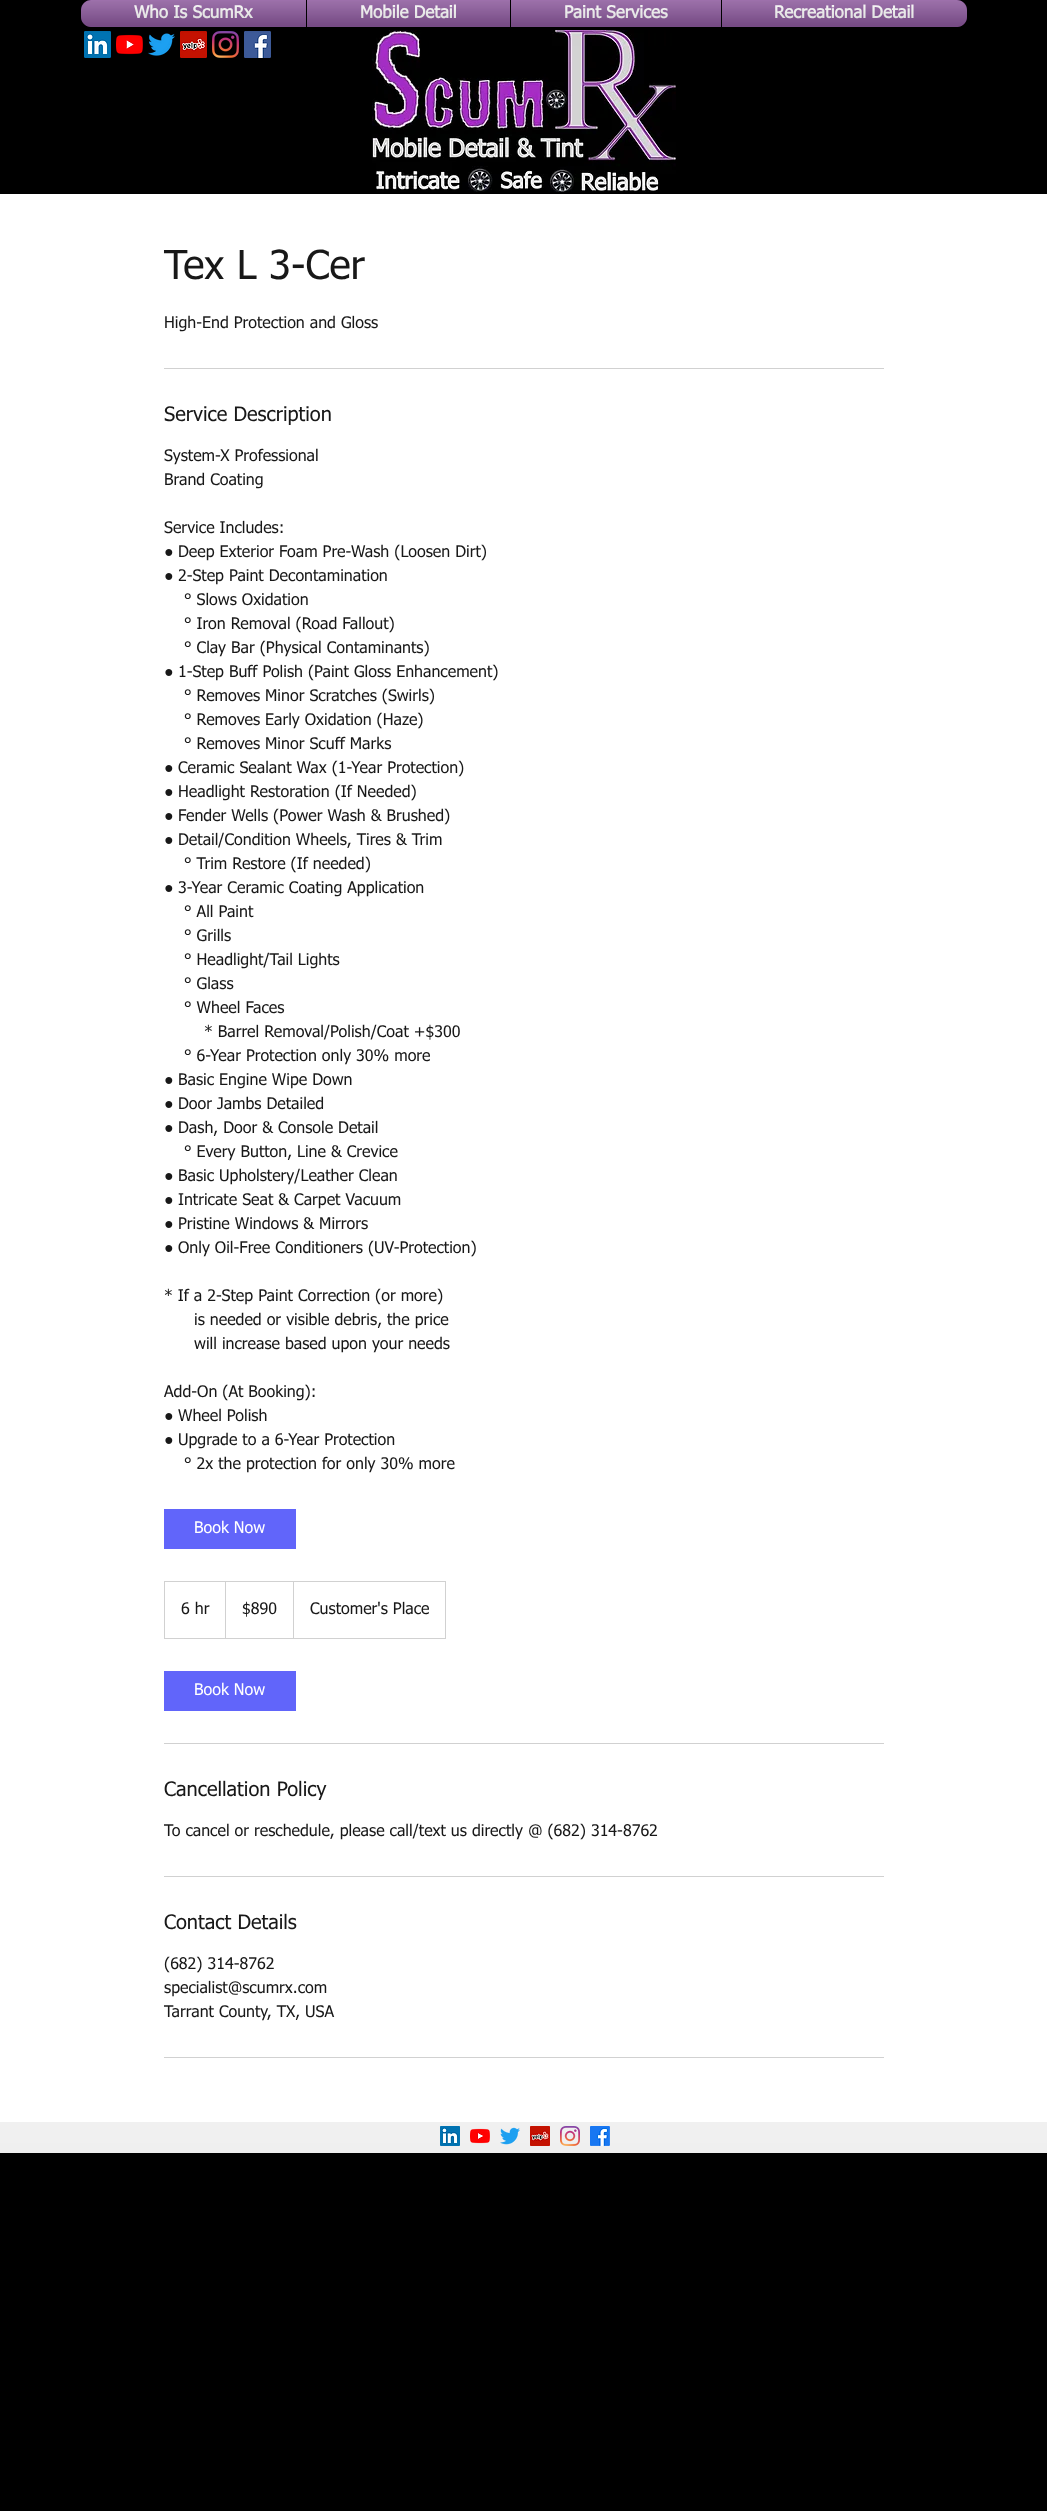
<svg xmlns="http://www.w3.org/2000/svg" width="1047" height="2511" viewBox="0 0 1047 2511">
  <style>
    .t1 { font: bold 17px tahoma; fill: #fff; }
    .t2 { font: 40px tahoma; fill: #181818; }
    .t3 { font: 16px tahoma; fill: #181818; }
    .t4 { font: 20px tahoma; fill: #181818; }
    .t5 { font: 16px 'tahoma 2'; fill: #181818; }
    .t6 { font: 16px tahoma; fill: #fff; }
  </style>
  <rect width="100%" height="100%" fill="#000"/>
  <image x="84" y="31" width="27" height="27" href="images/11.png"/>
  <image x="116" y="34" width="27" height="21" href="images/12.png"/>
  <image x="148" y="33" width="27" height="23" href="images/13.png"/>
  <image x="180" y="31" width="27" height="27" href="images/14.png"/>
  <image x="212" y="31" width="27" height="27" href="images/15.png"/>
  <image x="244" y="31" width="27" height="27" href="images/16.png"/>
  <image x="372" y="30" width="304" height="162" href="images/17.png"/>
  <rect x="81" y="1" width="886" height="27" rx="10" fill="#00000099" filter="blur(2px)"/>
  <image x="81" y="0" width="886" height="27" href="images/1.png"/>
  <image x="81" y="5" width="886" height="22" href="images/2.png"/>
  <path d="M91 0H306V27H91C85.5 27 81 22.5 81 17V10C81 4.5 85.5 0 91 0Z" fill="#875099"/>
  <text x="134" y="18" class="t1">Who Is ScumRx</text>
  <image x="81" y="0" width="225" height="27" href="images/3.png"/>
  <image x="81" y="1" width="225" height="26" href="images/4.png"/>
  <rect x="307" y="0" width="203" height="27" fill="#875099"/>
  <rect x="306" y="0" width="1" height="27" fill="#000"/>
  <text x="360" y="18" class="t1">Mobile Detail</text>
  <image x="307" y="0" width="203" height="27" href="images/5.png"/>
  <image x="307" y="1" width="203" height="26" href="images/6.png"/>
  <rect x="511" y="0" width="210" height="27" fill="#875099"/>
  <rect x="510" y="0" width="1" height="27" fill="#000"/>
  <text x="564" y="18" class="t1">Paint Services</text>
  <image x="511" y="0" width="210" height="27" href="images/7.png"/>
  <image x="511" y="1" width="210" height="26" href="images/8.png"/>
  <path d="M721 0H957C962.5 0 967 4.5 967 10V17C967 22.5 962.5 27 957 27H721Z" fill="#875099"/>
  <rect x="721" y="0" width="1" height="27" fill="#000"/>
  <text x="774" y="18" class="t1">Recreational Detail</text>
  <image x="722" y="0" width="245" height="27" href="images/9.png"/>
  <image x="722" y="1" width="245" height="26" href="images/10.png"/>
  <rect x="0" y="194" width="1047" height="1928" fill="#fff"/>
  <text x="164" y="279" class="t2">Tex L 3-Cer</text>
  <text x="164" y="328" class="t3">High-End Protection and Gloss</text>
  <rect x="164" y="368" width="720" height="1" fill="#d1d1d1"/>
  <text x="164" y="421" class="t4">Service Description</text>
  <text x="164" y="461" class="t3">System-X Professional</text>
  <text x="164" y="485" class="t3">Brand Coating</text>
  <text x="164" y="533" class="t3">Service Includes:</text>
  <text x="164" y="557" class="t5">●</text>
  <text x="178" y="557" class="t3">Deep Exterior Foam Pre-Wash (Loosen Dirt)</text>
  <text x="164" y="581" class="t5">●</text>
  <text x="178" y="581" class="t3">2-Step Paint Decontamination</text>
  <text x="184" y="605" class="t3">° Slows Oxidation</text>
  <text x="184" y="629" class="t3">° Iron Removal (Road Fallout)</text>
  <text x="184" y="653" class="t3">° Clay Bar (Physical Contaminants)</text>
  <text x="164" y="677" class="t5">●</text>
  <text x="178" y="677" class="t3">1-Step Buff Polish (Paint Gloss Enhancement)</text>
  <text x="184" y="701" class="t3">° Removes Minor Scratches (Swirls)</text>
  <text x="184" y="725" class="t3">° Removes Early Oxidation (Haze)</text>
  <text x="184" y="749" class="t3">° Removes Minor Scuff Marks</text>
  <text x="164" y="773" class="t5">●</text>
  <text x="178" y="773" class="t3">Ceramic Sealant Wax (1-Year Protection)</text>
  <text x="164" y="797" class="t5">●</text>
  <text x="178" y="797" class="t3">Headlight Restoration (If Needed)</text>
  <text x="164" y="821" class="t5">●</text>
  <text x="178" y="821" class="t3">Fender Wells (Power Wash &amp; Brushed)</text>
  <text x="164" y="845" class="t5">●</text>
  <text x="178" y="845" class="t3">Detail/Condition Wheels, Tires &amp; Trim</text>
  <text x="184" y="869" class="t3">° Trim Restore (If needed)</text>
  <text x="164" y="893" class="t5">●</text>
  <text x="178" y="893" class="t3">3-Year Ceramic Coating Application</text>
  <text x="184" y="917" class="t3">° All Paint</text>
  <text x="184" y="941" class="t3">° Grills</text>
  <text x="184" y="965" class="t3">° Headlight/Tail Lights</text>
  <text x="184" y="989" class="t3">° Glass</text>
  <text x="184" y="1013" class="t3">° Wheel Faces</text>
  <text x="204" y="1037" class="t3">* Barrel Removal/Polish/Coat +$300</text>
  <text x="184" y="1061" class="t3">° 6-Year Protection only 30% more</text>
  <text x="164" y="1085" class="t5">●</text>
  <text x="178" y="1085" class="t3">Basic Engine Wipe Down</text>
  <text x="164" y="1109" class="t5">●</text>
  <text x="178" y="1109" class="t3">Door Jambs Detailed</text>
  <text x="164" y="1133" class="t5">●</text>
  <text x="178" y="1133" class="t3">Dash, Door &amp; Console Detail</text>
  <text x="184" y="1157" class="t3">° Every Button, Line &amp; Crevice</text>
  <text x="164" y="1181" class="t5">●</text>
  <text x="178" y="1181" class="t3">Basic Upholstery/Leather Clean</text>
  <text x="164" y="1205" class="t5">●</text>
  <text x="178" y="1205" class="t3">Intricate Seat &amp; Carpet Vacuum</text>
  <text x="164" y="1229" class="t5">●</text>
  <text x="178" y="1229" class="t3">Pristine Windows &amp; Mirrors</text>
  <text x="164" y="1253" class="t5">●</text>
  <text x="178" y="1253" class="t3">Only Oil-Free Conditioners (UV-Protection)</text>
  <text x="164" y="1301" class="t3">* If a 2-Step Paint Correction (or more)</text>
  <text x="194" y="1325" class="t3">is needed or visible debris, the price</text>
  <text x="194" y="1349" class="t3">will increase based upon your needs</text>
  <text x="164" y="1397" class="t3">Add-On (At Booking):</text>
  <text x="164" y="1421" class="t5">●</text>
  <text x="178" y="1421" class="t3">Wheel Polish</text>
  <text x="164" y="1445" class="t5">●</text>
  <text x="178" y="1445" class="t3">Upgrade to a 6-Year Protection</text>
  <text x="184" y="1469" class="t3">° 2x the protection for only 30% more</text>
  <rect x="164" y="1509" width="132" height="40" fill="#6165fa"/>
  <text x="194" y="1533" class="t6">Book Now</text>
  <rect x="164.5" y="1581.5" width="281" height="57" fill="none" stroke="#d1d1d1"/>
  <text x="181" y="1614" class="t3">6 hr</text>
  <path d="M225 1638V1581L226 1582V1638Z" fill="#d1d1d1"/>
  <text x="242" y="1614" class="t3">$890</text>
  <path d="M293 1638V1581L294 1582V1638Z" fill="#d1d1d1"/>
  <text x="310" y="1614" class="t3">Customer's Place</text>
  <rect x="164" y="1671" width="132" height="40" fill="#6165fa"/>
  <text x="194" y="1695" class="t6">Book Now</text>
  <rect x="164" y="1743" width="720" height="1" fill="#d1d1d1"/>
  <text x="164" y="1796" class="t4">Cancellation Policy</text>
  <text x="164" y="1836" class="t3">To cancel or reschedule, please call/text us directly @ (682) 314-8762</text>
  <rect x="164" y="1876" width="720" height="1" fill="#d1d1d1"/>
  <text x="164" y="1929" class="t4">Contact Details</text>
  <text x="164" y="1969" class="t3">(682) 314-8762</text>
  <text x="164" y="1993" class="t3">specialist@scumrx.com</text>
  <text x="164" y="2017" class="t3">Tarrant County, TX, USA</text>
  <rect x="164" y="2057" width="720" height="1" fill="#d1d1d1"/>
  <rect x="0" y="2122" width="1047" height="31" fill="#ebebeb"/>
  <image x="0" y="2122" width="1047" height="31" href="images/18.png"/>
  <image x="440" y="2126" width="20" height="20" href="images/19.png"/>
  <image x="470" y="2128" width="20" height="16" href="images/20.png"/>
  <image x="500" y="2127" width="20" height="18" href="images/21.png"/>
  <image x="530" y="2126" width="20" height="20" href="images/22.png"/>
  <image x="560" y="2126" width="20" height="20" href="images/23.png"/>
  <image x="590" y="2126" width="20" height="20" href="images/24.png"/>
</svg>
